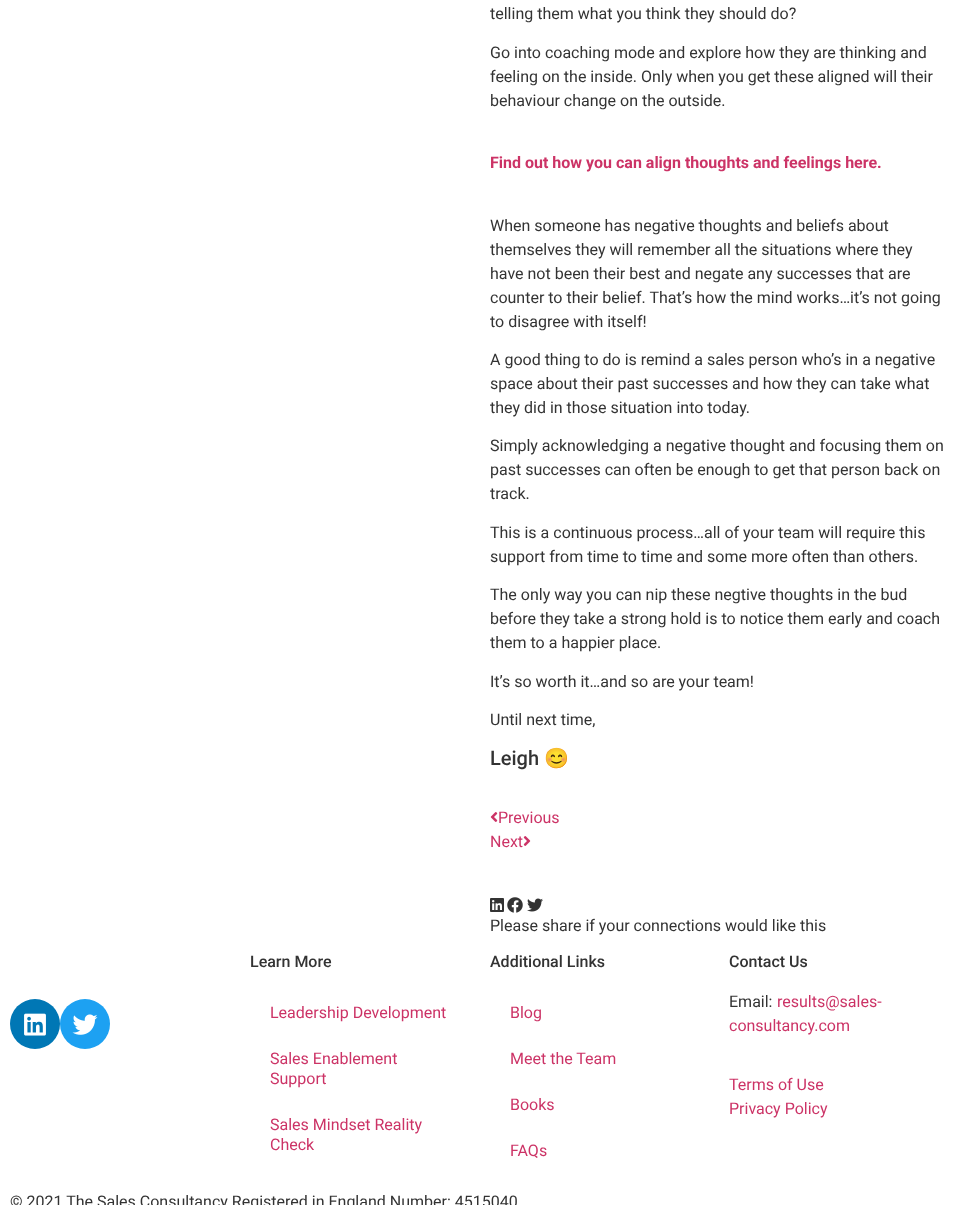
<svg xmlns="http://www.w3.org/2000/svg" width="959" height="1205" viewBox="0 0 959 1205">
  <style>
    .t1 { font: 16px Roboto; fill: #333; }
    .t2 { font: bold 16px Roboto; fill: #c36; }
    .t3 { font: 500 20px Roboto; fill: #333; }
    .t4 { font: 20px Noto Color Emoji; fill: #333; }
    .t5 { font: 16px Roboto; fill: #c36; }
    .t6 { font: 500 16px Roboto; fill: #333; }
  </style>
  <rect width="100%" height="100%" fill="#fff"/>
  <text x="490" y="19" class="t1">telling them what you think they should do?</text>
  <text x="490" y="58" class="t1">Go into coaching mode and explore how they are thinking and</text>
  <text x="490" y="82" class="t1">feeling on the inside. Only when you get these aligned will their</text>
  <text x="490" y="106" class="t1">behaviour change on the outside.</text>
  <text x="490" y="168" class="t2">Find out how you can align thoughts and feelings here.</text>
  <text x="490" y="231" class="t1">When someone has negative thoughts and beliefs about</text>
  <text x="490" y="255" class="t1">themselves they will remember all the situations where they</text>
  <text x="490" y="279" class="t1">have not been their best and negate any successes that are</text>
  <text x="490" y="303" class="t1">counter to their belief. That’s how the mind works…it’s not going</text>
  <text x="490" y="327" class="t1">to disagree with itself!</text>
  <text x="490" y="365" class="t1">A good thing to do is remind a sales person who’s in a negative</text>
  <text x="490" y="389" class="t1">space about their past successes and how they can take what</text>
  <text x="490" y="413" class="t1">they did in those situation into today.</text>
  <text x="490" y="451" class="t1">Simply acknowledging a negative thought and focusing them on</text>
  <text x="490" y="475" class="t1">past successes can often be enough to get that person back on</text>
  <text x="490" y="499" class="t1">track.</text>
  <text x="490" y="538" class="t1">This is a continuous process…all of your team will require this</text>
  <text x="490" y="562" class="t1">support from time to time and some more often than others.</text>
  <text x="490" y="600" class="t1">The only way you can nip these negtive thoughts in the bud</text>
  <text x="490" y="624" class="t1">before they take a strong hold is to notice them early and coach</text>
  <text x="490" y="648" class="t1">them to a happier place.</text>
  <text x="490" y="687" class="t1">It’s so worth it…and so are your team!</text>
  <text x="490" y="725" class="t1">Until next time,</text>
  <text x="490" y="765" class="t3">Leigh</text>
  <text x="544" y="765" class="t4">😊</text>
  <image x="490" y="812" width="8" height="10" href="images/1.png"/>
  <text x="498" y="823" class="t5">Previous</text>
  <text x="490" y="847" class="t5">Next</text>
  <image x="523" y="836" width="8" height="10" href="images/2.png"/>
  <image x="490" y="898" width="14" height="14" href="images/3.png"/>
  <image x="507" y="897" width="16" height="16" href="images/4.png"/>
  <image x="527" y="898" width="16" height="14" href="images/5.png"/>
  <text x="490" y="931" class="t1">Please share if your connections would like this</text>
  <circle cx="35" cy="1024" r="25" fill="#0077b5"/>
  <image x="24" y="1013" width="22" height="23" href="images/6.png"/>
  <circle cx="85" cy="1024" r="25" fill="#1da1f2"/>
  <image x="72" y="1014" width="26" height="21" href="images/7.png"/>
  <text x="250" y="967" class="t6">Learn More</text>
  <text x="270" y="1018" class="t5">Leadership Development</text>
  <text x="270" y="1064" class="t5">Sales Enablement</text>
  <text x="270" y="1084" class="t5">Support</text>
  <text x="270" y="1130" class="t5">Sales Mindset Reality</text>
  <text x="270" y="1150" class="t5">Check</text>
  <text x="490" y="967" class="t6">Additional Links</text>
  <text x="510" y="1018" class="t5">Blog</text>
  <text x="510" y="1064" class="t5">Meet the Team</text>
  <text x="510" y="1110" class="t5">Books</text>
  <text x="510" y="1156" class="t5">FAQs</text>
  <text x="729" y="967" class="t6">Contact Us</text>
  <text x="729" y="1007" class="t1">Email:</text>
  <text x="777" y="1007" class="t5">results@sales-</text>
  <text x="729" y="1031" class="t5">consultancy.com</text>
  <text x="729" y="1090" class="t5">Terms of Use</text>
  <text x="729" y="1114" class="t5">Privacy Policy</text>
  <text x="10" y="1207" class="t1">© 2021 The Sales Consultancy Registered in England Number: 4515040</text>
</svg>
